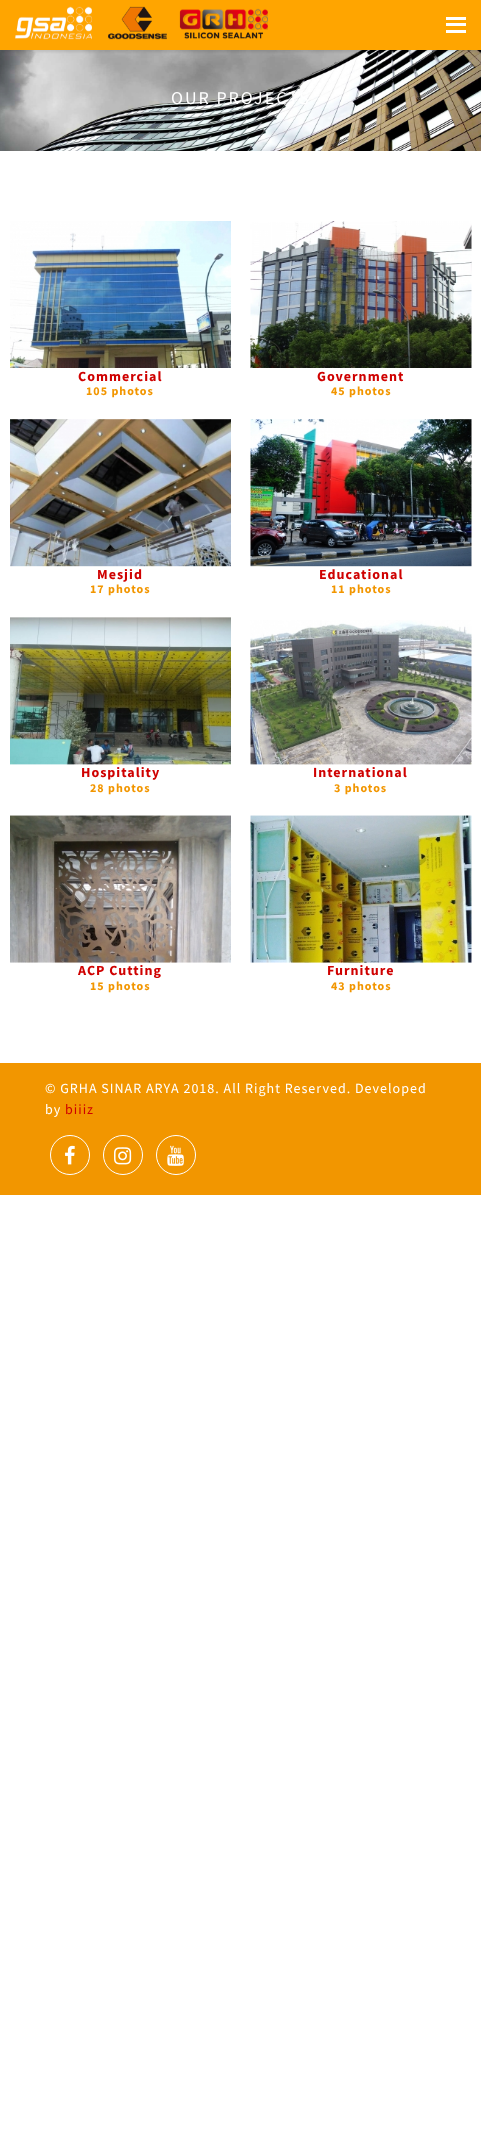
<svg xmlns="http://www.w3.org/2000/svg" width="481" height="2131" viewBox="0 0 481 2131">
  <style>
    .t1 { font: 18px Source Sans Pro; letter-spacing: 2px; fill: #fff; }
    .t2 { font: bold 14px Source Sans Pro; letter-spacing: 1px; fill: #cf0100; }
    .t3 { font: bold 12px Source Sans Pro; letter-spacing: 1px; fill: #f29600; }
    .t4 { font: 14px Source Sans Pro; letter-spacing: 1px; fill: #fff; }
    .t5 { font: 14px Source Sans Pro; letter-spacing: 1px; fill: #cf0100; }
  </style>
  <rect width="100%" height="100%" fill="#fff"/>
  <image x="0" y="50" width="481" height="101" href="images/2.png"/>
  <rect x="0" y="2" width="481" height="50" fill="#0000001a" filter="blur(1px)"/>
  <rect x="0" y="0" width="481" height="50" fill="#ffa500"/>
  <image x="15" y="6" width="253" height="34" href="images/1.png"/>
  <rect x="446" y="17" width="20" height="3" fill="#fff"/>
  <rect x="446" y="23" width="20" height="3" fill="#fff"/>
  <rect x="446" y="30" width="20" height="3" fill="#fff"/>
  <text x="171" y="104" class="t1">OUR PROJECTS</text>
  <image x="10" y="221" width="221" height="147" href="images/3.png"/>
  <text x="78" y="381" class="t2">Commercial</text>
  <text x="86" y="395" class="t3">105 photos</text>
  <image x="250" y="221" width="222" height="147" href="images/4.png"/>
  <text x="317" y="381" class="t2">Government</text>
  <text x="331" y="395" class="t3">45 photos</text>
  <image x="10" y="419" width="221" height="148" href="images/5.png"/>
  <text x="97" y="579" class="t2">Mesjid</text>
  <text x="90" y="593" class="t3">17 photos</text>
  <image x="250" y="419" width="222" height="148" href="images/6.png"/>
  <text x="319" y="579" class="t2">Educational</text>
  <text x="331" y="593" class="t3">11 photos</text>
  <image x="10" y="617" width="221" height="148" href="images/7.png"/>
  <text x="81" y="777" class="t2">Hospitality</text>
  <text x="90" y="792" class="t3">28 photos</text>
  <image x="250" y="620" width="222" height="145" href="images/8.png"/>
  <text x="313" y="777" class="t2">International</text>
  <text x="334" y="792" class="t3">3 photos</text>
  <image x="10" y="815" width="221" height="148" href="images/9.png"/>
  <text x="78" y="975" class="t2">ACP Cutting</text>
  <text x="90" y="990" class="t3">15 photos</text>
  <image x="250" y="815" width="222" height="148" href="images/10.png"/>
  <text x="327" y="975" class="t2">Furniture</text>
  <text x="331" y="990" class="t3">43 photos</text>
  <rect x="0" y="1063" width="481" height="132" fill="#f29600"/>
  <text x="45" y="1093" class="t4">© GRHA SINAR ARYA 2018. All Right Reserved. Developed</text>
  <text x="45" y="1114" class="t4">by</text>
  <text x="65" y="1114" class="t5">biiiz</text>
  <circle cx="70" cy="1155" r="19.5" fill="none" stroke="#fff"/>
  <image x="65" y="1145" width="10" height="20" href="images/11.png"/>
  <circle cx="123" cy="1155" r="19.5" fill="none" stroke="#fff"/>
  <image x="114" y="1147" width="18" height="18" href="images/12.png"/>
  <circle cx="176" cy="1155" r="19.5" fill="none" stroke="#fff"/>
  <image x="167" y="1145" width="17" height="21" href="images/13.png"/>
</svg>
